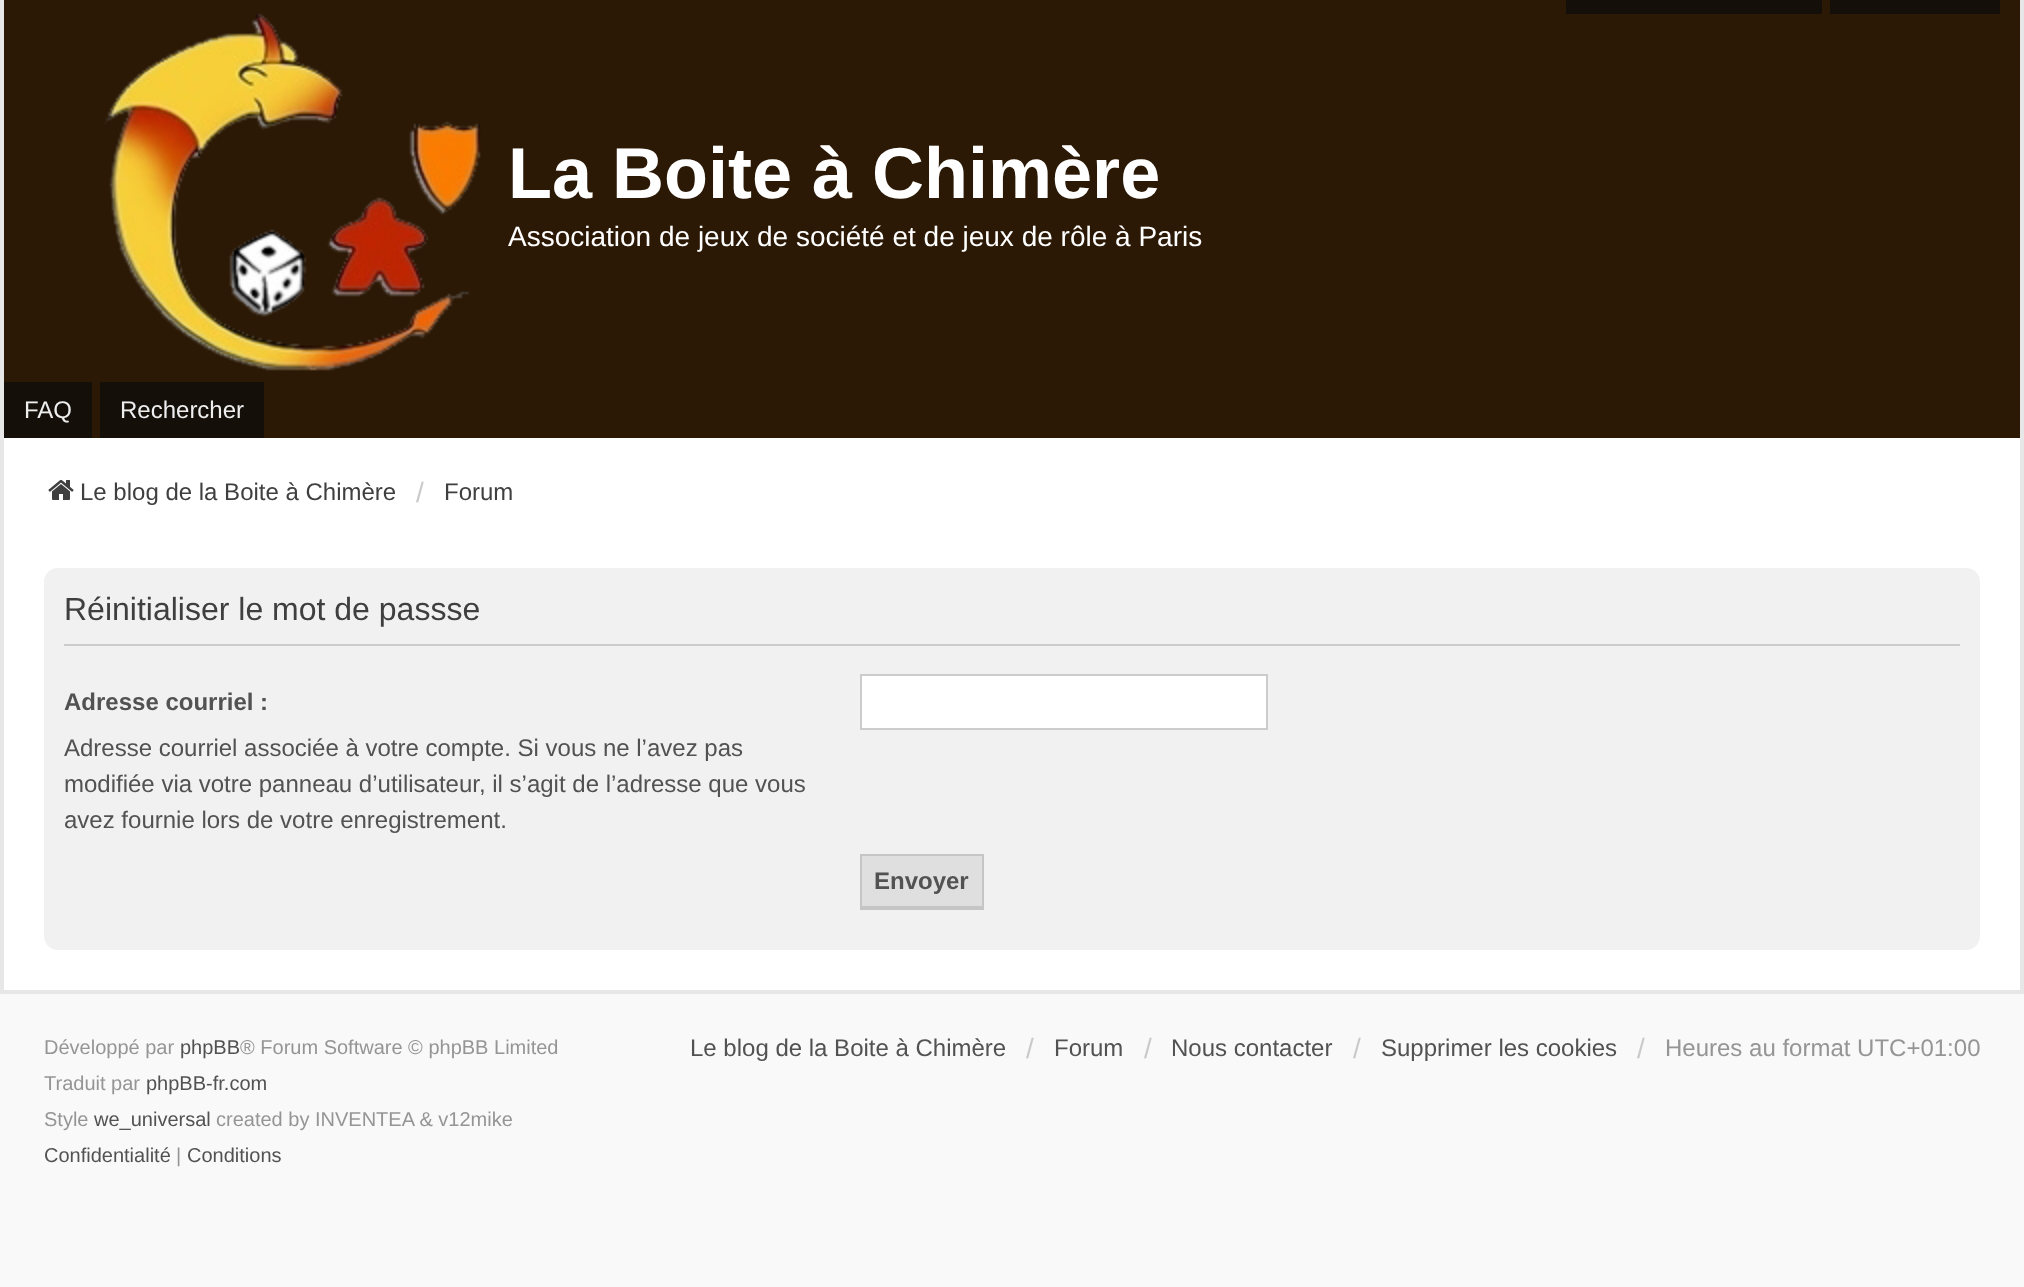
<svg xmlns="http://www.w3.org/2000/svg" width="2024" height="1287" viewBox="0 0 2024 1287">
  <style>
    .t1 { font: bold 72px Liberation Sans; fill: #fff; }
    .t2 { font: 28px Liberation Sans; fill: #fff; }
    .t3 { font: 24px Liberation Sans; fill: #eee; }
    .t4 { font: 24px Liberation Sans; fill: #3f3f3f; }
    .t5 { font: 28px Liberation Sans; fill: #cacaca; }
    .t6 { font: 32px Liberation Sans; fill: #3f3f3f; }
    .t7 { font: bold 24px Liberation Sans; fill: #525252; }
    .t8 { font: 24px Liberation Sans; fill: #525252; }
    .t9 { font: 20px Liberation Sans; fill: #959595; }
    .t10 { font: 20px Liberation Sans; fill: #525252; }
    .t11 { font: 24px Liberation Sans; fill: #959595; }
  </style>
  <rect width="100%" height="100%" fill="#f9f9f9"/>
  <rect x="2020" y="0" width="4" height="994" fill="#e7e7e7"/>
  <rect x="0" y="0" width="4" height="438" fill="#e7e7e7"/>
  <rect x="4" y="0" width="2016" height="438" fill="#2b1906"/>
  <rect x="1566" y="0" width="256" height="14" fill="#140f09"/>
  <rect x="1830" y="0" width="170" height="14" fill="#140f09"/>
  <image x="104" y="13" width="377" height="358" href="images/1.png"/>
  <text x="508" y="198" class="t1">La Boite à Chimère</text>
  <text x="508" y="246" class="t2">Association de jeux de société et de jeux de rôle à Paris</text>
  <rect x="4" y="382" width="88" height="56" fill="#140f09"/>
  <text x="24" y="418" class="t3">FAQ</text>
  <rect x="100" y="382" width="164" height="56" fill="#140f09"/>
  <text x="120" y="418" class="t3">Rechercher</text>
  <rect x="4" y="438" width="2016" height="552" fill="#fff"/>
  <rect x="0" y="990" width="2024" height="4" fill="#e7e7e7"/>
  <rect x="0" y="438" width="4" height="556" fill="#e7e7e7"/>
  <image x="48" y="480" width="26" height="20" href="images/2.png"/>
  <text x="80" y="500" class="t4">Le blog de la Boite à Chimère</text>
  <text x="416" y="502" class="t5">/</text>
  <text x="444" y="500" class="t4">Forum</text>
  <rect x="44" y="568" width="1936" height="382" rx="14" fill="#f1f1f1"/>
  <rect x="64" y="644" width="1896" height="2" fill="#ccc"/>
  <text x="64" y="620" class="t6">Réinitialiser le mot de passse</text>
  <text x="64" y="710" class="t7">Adresse courriel :</text>
  <text x="64" y="756" class="t8">Adresse courriel associée à votre compte. Si vous ne l’avez pas</text>
  <text x="64" y="792" class="t8">modifiée via votre panneau d’utilisateur, il s’agit de l’adresse que vous</text>
  <text x="64" y="828" class="t8">avez fournie lors de votre enregistrement.</text>
  <rect x="861" y="675" width="406" height="54" fill="#fff" stroke="#ccc" stroke-width="2"/>
  <rect x="862" y="856" width="120" height="50" fill="#dfdfdf"/>
  <rect x="860" y="854" width="124" height="2" fill="#c5c5c5"/>
  <rect x="982" y="854" width="2" height="56" fill="#c5c5c5"/>
  <rect x="860" y="906" width="124" height="4" fill="#c5c5c5"/>
  <rect x="860" y="854" width="2" height="56" fill="#c5c5c5"/>
  <text x="874" y="889" class="t7">Envoyer</text>
  <text x="44" y="1054" class="t9">Développé par</text>
  <text x="180" y="1054" class="t10">phpBB</text>
  <text x="240" y="1054" class="t9">® Forum Software © phpBB Limited</text>
  <text x="44" y="1090" class="t9">Traduit par</text>
  <text x="146" y="1090" class="t10">phpBB-fr.com</text>
  <text x="44" y="1126" class="t9">Style</text>
  <text x="94" y="1126" class="t10">we_universal</text>
  <text x="216" y="1126" class="t9">created by INVENTEA &amp; v12mike</text>
  <text x="44" y="1162" class="t10">Confidentialité</text>
  <text x="176" y="1162" class="t9">|</text>
  <text x="187" y="1162" class="t10">Conditions</text>
  <text x="690" y="1056" class="t8">Le blog de la Boite à Chimère</text>
  <text x="1026" y="1058" class="t5">/</text>
  <text x="1054" y="1056" class="t8">Forum</text>
  <text x="1144" y="1058" class="t5">/</text>
  <text x="1171" y="1056" class="t8">Nous contacter</text>
  <text x="1353" y="1058" class="t5">/</text>
  <text x="1381" y="1056" class="t8">Supprimer les cookies</text>
  <text x="1637" y="1058" class="t5">/</text>
  <text x="1665" y="1056" class="t11">Heures au format UTC+01:00</text>
</svg>
